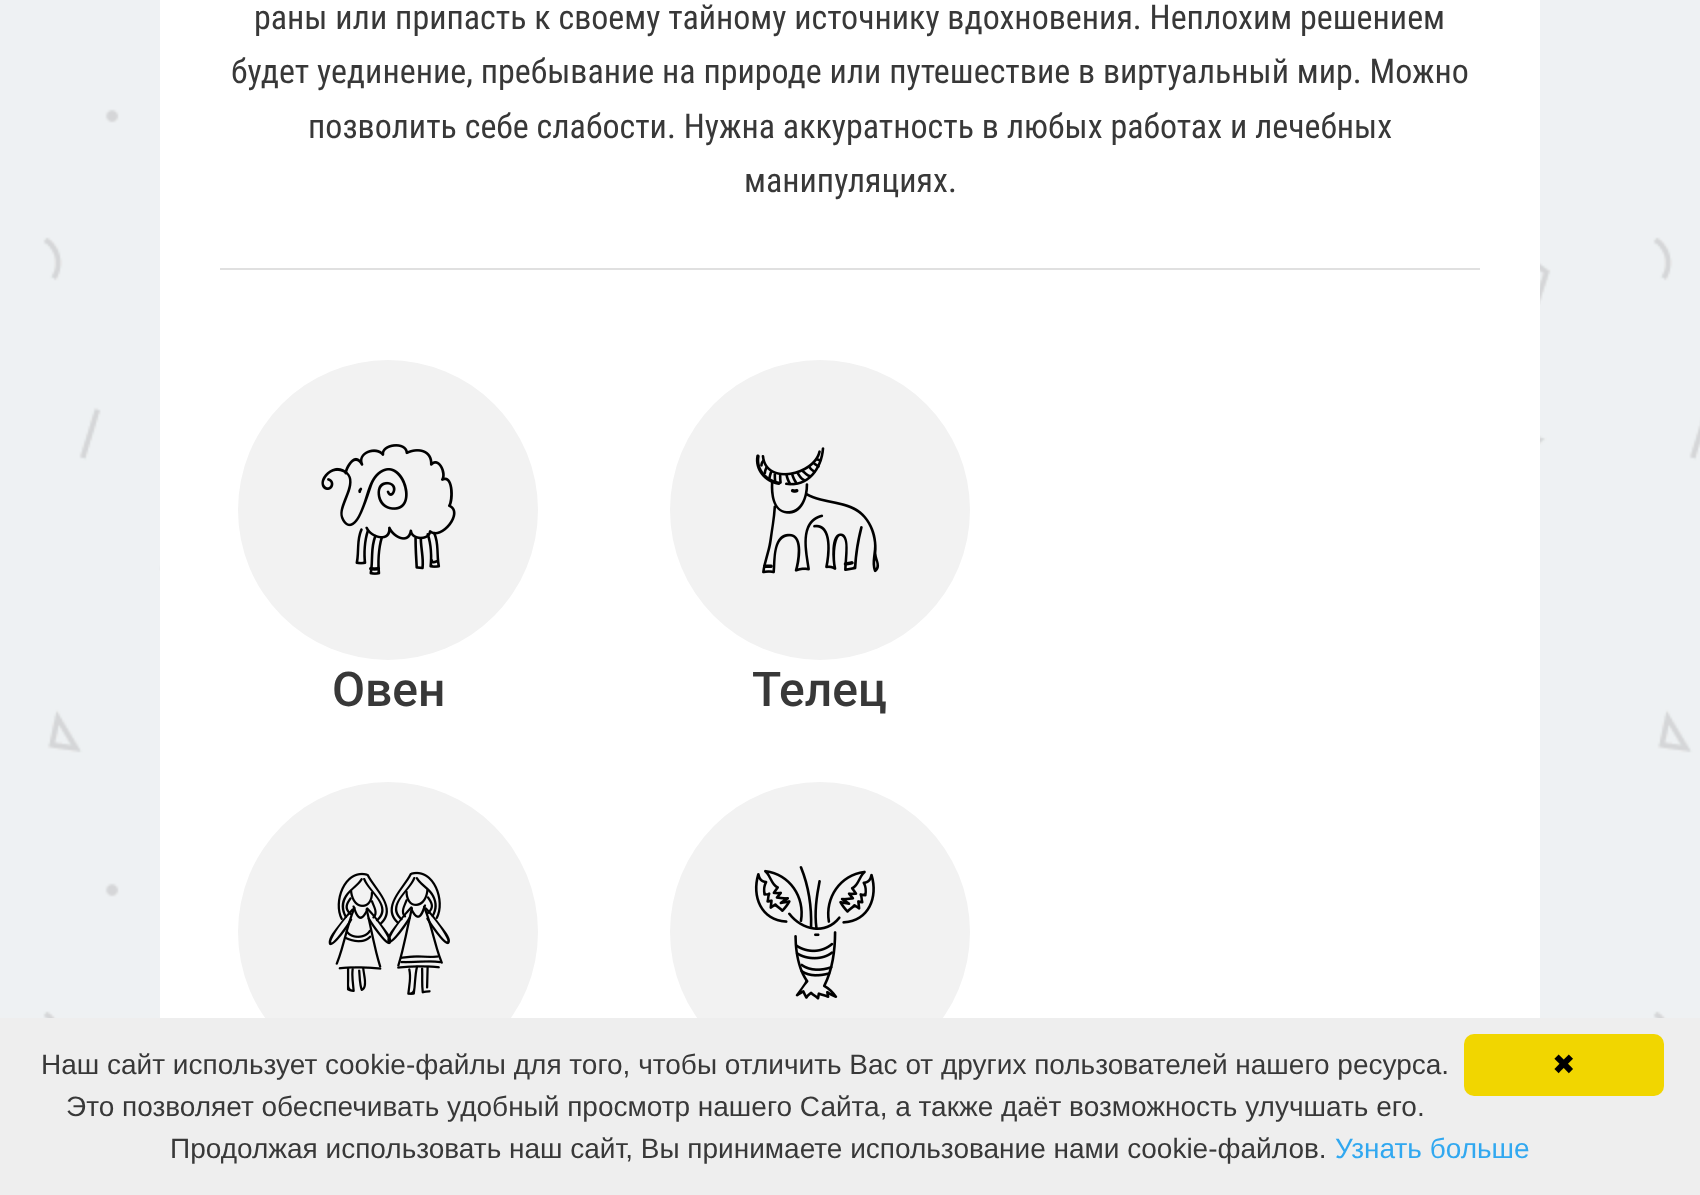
<svg xmlns="http://www.w3.org/2000/svg" width="1700" height="1195" viewBox="0 0 1700 1195">
  <style>
    .t1 { font: 34px Roboto Condensed; fill: #383838; }
    .t2 { font: 500 48px Roboto; fill: #383838; }
    .t3 { font: 28px Liberation Sans; fill: #383838; }
    .t4 { font: 28px Liberation Sans; fill: #31a8f0; }
    .t5 { font: 28px DejaVu Sans; fill: #000; }
  </style>
  <rect width="100%" height="100%" fill="#fff"/>
  <image x="0" y="0" width="1700" height="1018" href="images/1.png"/>
  <rect x="160" y="0" width="1380" height="1018" fill="#fff"/>
  <rect x="220" y="268" width="1260" height="2" fill="#e0e0e0"/>
  <text x="254" y="29" class="t1">раны или припасть к своему тайному источнику вдохновения. Неплохим решением</text>
  <text x="231" y="83" class="t1">будет уединение, пребывание на природе или путешествие в виртуальный мир. Можно</text>
  <text x="308" y="138" class="t1">позволить себе слабости. Нужна аккуратность в любых работах и лечебных</text>
  <text x="744" y="192" class="t1">манипуляциях.</text>
  <circle cx="388" cy="510" r="150" fill="#f2f2f2"/>
  <image x="321" y="444" width="135" height="131" href="images/2.png"/>
  <text x="332" y="706" class="t2">Овен</text>
  <circle cx="820" cy="510" r="150" fill="#f2f2f2"/>
  <image x="755" y="447" width="125" height="127" href="images/3.png"/>
  <text x="752" y="706" class="t2">Телец</text>
  <circle cx="388" cy="932" r="150" fill="#f2f2f2"/>
  <image x="328" y="871" width="122" height="124" href="images/4.png"/>
  <circle cx="820" cy="932" r="150" fill="#f2f2f2"/>
  <image x="754" y="866" width="121" height="134" href="images/5.png"/>
  <rect x="0" y="1018" width="1700" height="177" fill="#eee"/>
  <text x="41" y="1074" class="t3">Наш сайт использует cookie-файлы для того, чтобы отличить Вас от других пользователей нашего ресурса.</text>
  <text x="66" y="1116" class="t3">Это позволяет обеспечивать удобный просмотр нашего Сайта, а также даёт возможность улучшать его.</text>
  <text x="170" y="1158" class="t3">Продолжая использовать наш сайт, Вы принимаете использование нами cookie-файлов.</text>
  <text x="1335" y="1158" class="t4">Узнать больше</text>
  <rect x="1464" y="1034" width="200" height="62" rx="10" fill="#f1d600"/>
  <text x="1552" y="1074" class="t5">✖</text>
</svg>
